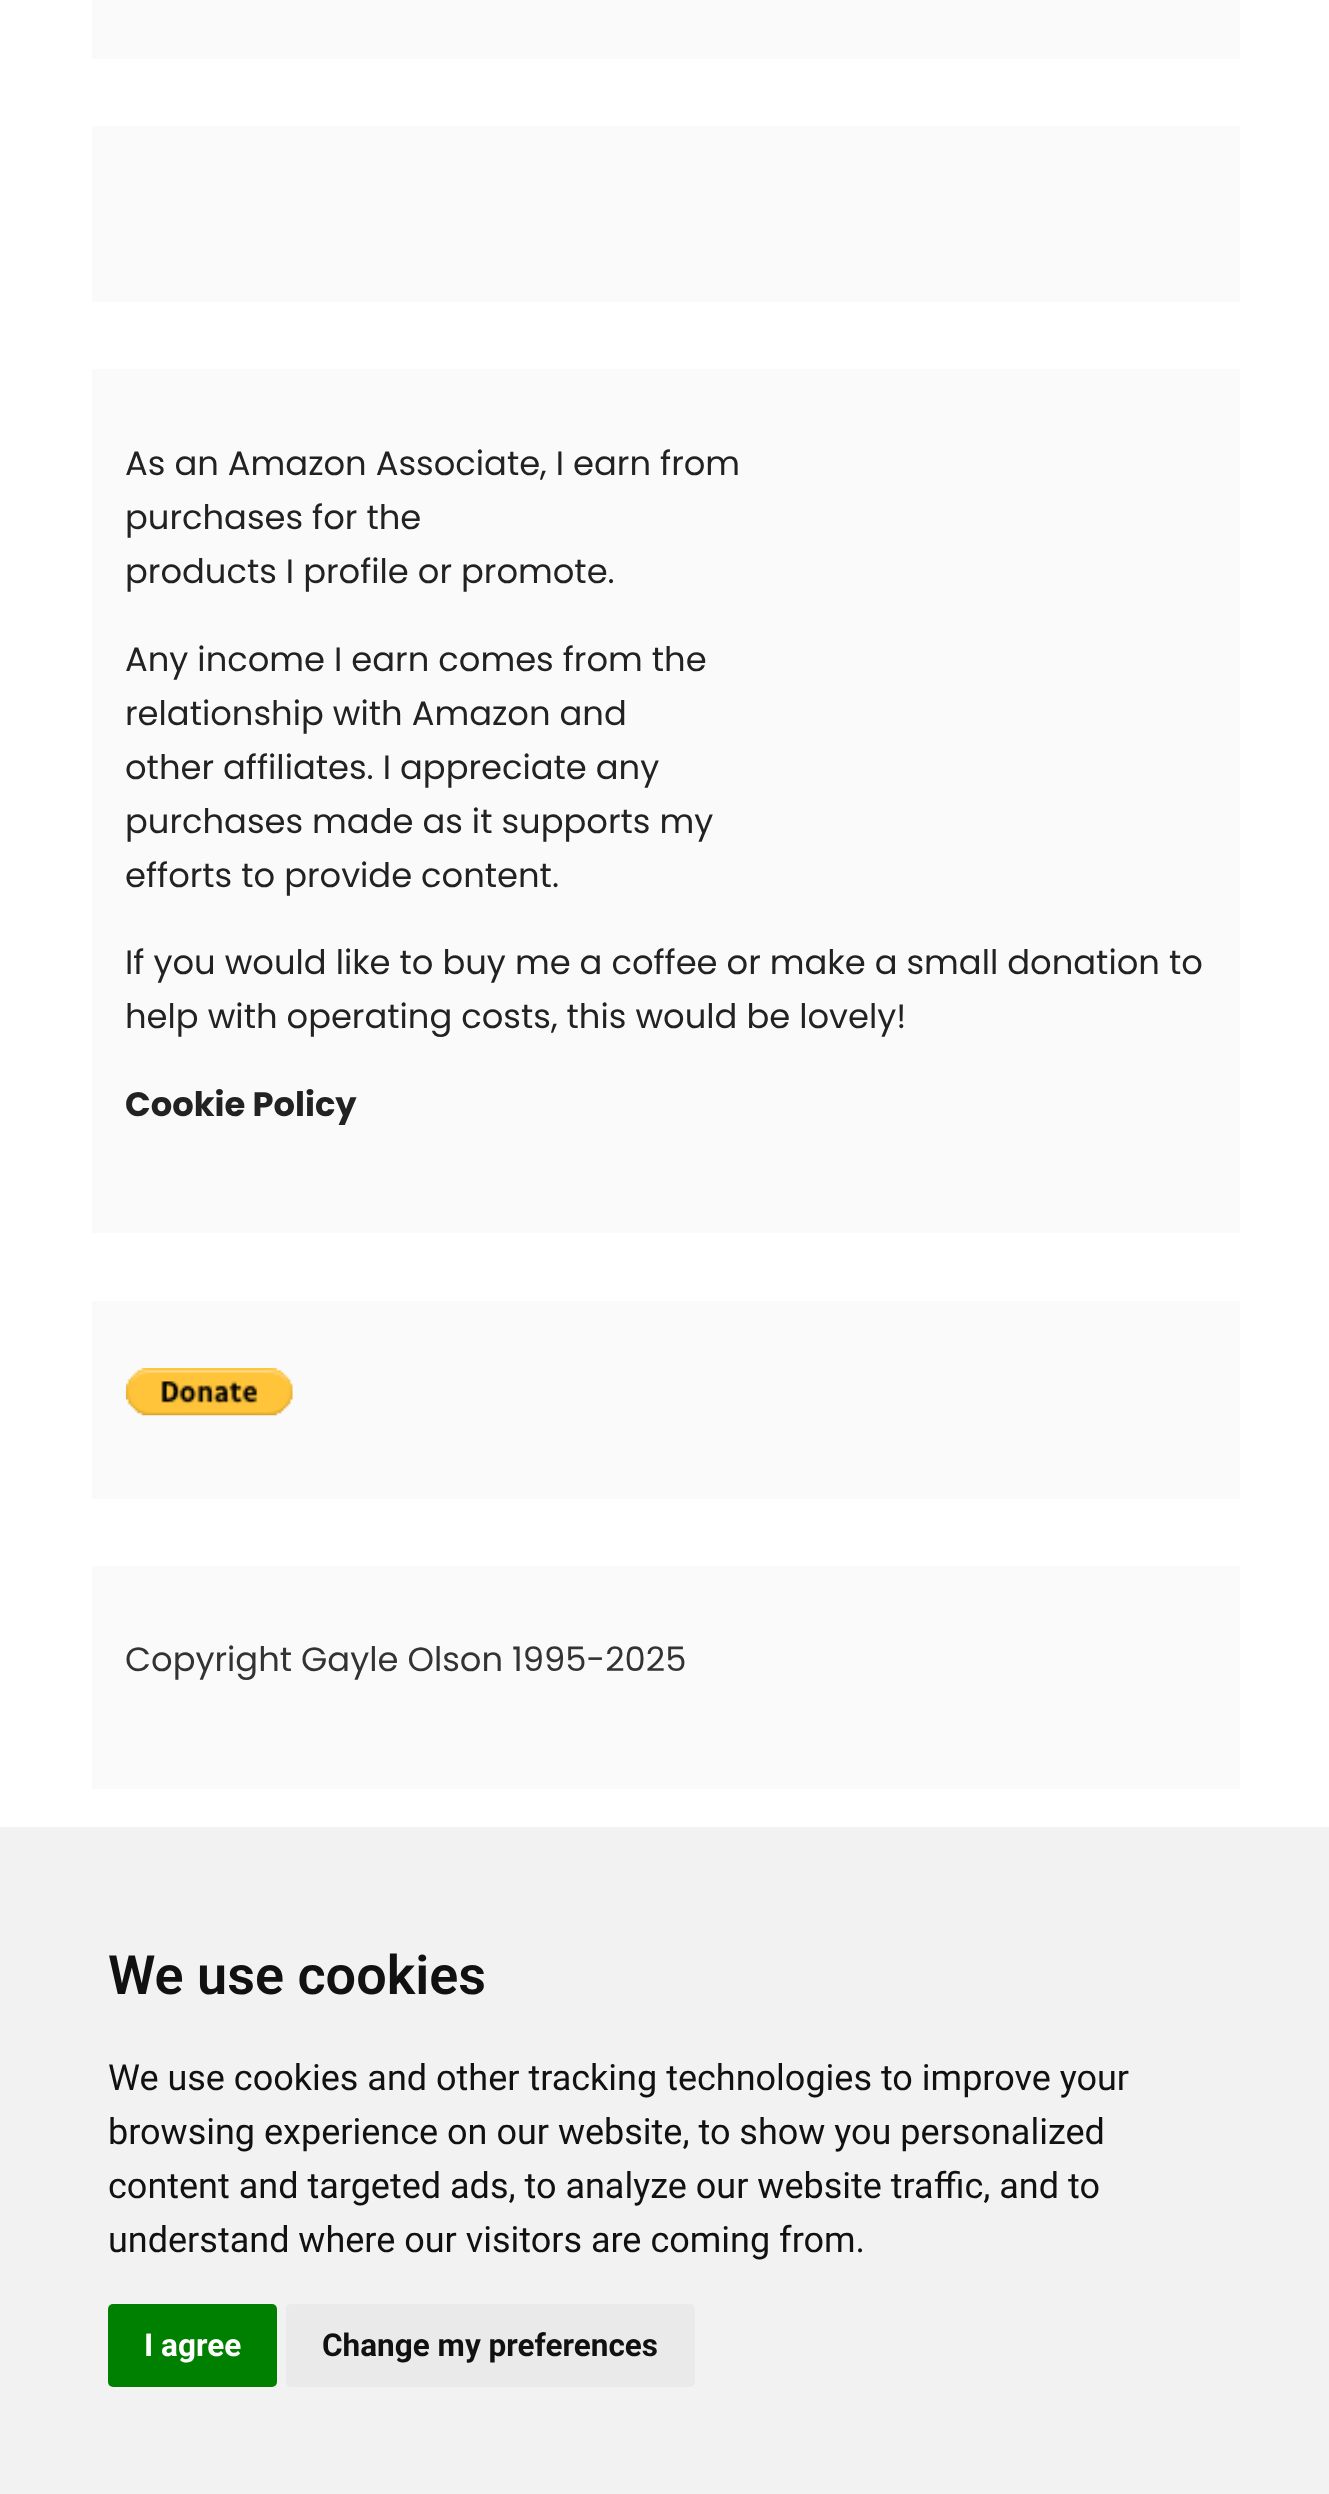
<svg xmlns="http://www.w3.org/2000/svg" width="1329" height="2494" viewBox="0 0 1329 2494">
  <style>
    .t1 { font: 33.75px Poppins; fill: #222; }
    .t2 { font: bold 33.75px Poppins; fill: #222; }
    .t3 { font: 33.75px Poppins; fill: #333; }
    .t4 { font: 600 54px Roboto; fill: #111; }
    .t5 { font: 36px Roboto; fill: #111; }
    .t6 { font: bold 31.5px Roboto; fill: #fff; }
    .t7 { font: bold 31.5px Roboto; fill: #111; }
  </style>
  <rect width="100%" height="100%" fill="#fff"/>
  <rect x="92" y="0" width="1148" height="59" fill="#fafafa"/>
  <rect x="92" y="126" width="1148" height="176" fill="#fafafa"/>
  <rect x="92" y="369" width="1148" height="864" fill="#fafafa"/>
  <text x="125" y="475" class="t1">As an Amazon Associate, I earn from</text>
  <text x="125" y="529" class="t1">purchases for the</text>
  <text x="125" y="583" class="t1">products I profile or promote.</text>
  <text x="125" y="671" class="t1">Any income I earn comes from the</text>
  <text x="125" y="725" class="t1">relationship with Amazon and</text>
  <text x="125" y="779" class="t1">other affiliates. I appreciate any</text>
  <text x="125" y="833" class="t1">purchases made as it supports my</text>
  <text x="125" y="887" class="t1">efforts to provide content.</text>
  <text x="125" y="974" class="t1">If you would like to buy me a coffee or make a small donation to</text>
  <text x="125" y="1028" class="t1">help with operating costs, this would be lovely!</text>
  <text x="125" y="1116" class="t2">Cookie Policy</text>
  <rect x="92" y="1301" width="1148" height="198" fill="#fafafa"/>
  <image x="126" y="1368" width="167" height="48" href="images/1.png"/>
  <rect x="92" y="1566" width="1148" height="223" fill="#fafafa"/>
  <text x="125" y="1671" class="t3">Copyright Gayle Olson 1995-2025</text>
  <rect x="0" y="1827" width="1329" height="667" fill="#f2f2f2"/>
  <text x="108" y="1994" class="t4">We use cookies</text>
  <text x="108" y="2090" class="t5">We use cookies and other tracking technologies to improve your</text>
  <text x="108" y="2144" class="t5">browsing experience on our website, to show you personalized</text>
  <text x="108" y="2198" class="t5">content and targeted ads, to analyze our website traffic, and to</text>
  <text x="108" y="2252" class="t5">understand where our visitors are coming from.</text>
  <rect x="108" y="2304" width="169" height="83" rx="5" fill="#008000"/>
  <text x="144" y="2356" class="t6">I agree</text>
  <rect x="286" y="2304" width="409" height="83" rx="5" fill="#eaeaea"/>
  <text x="322" y="2356" class="t7">Change my preferences</text>
</svg>
